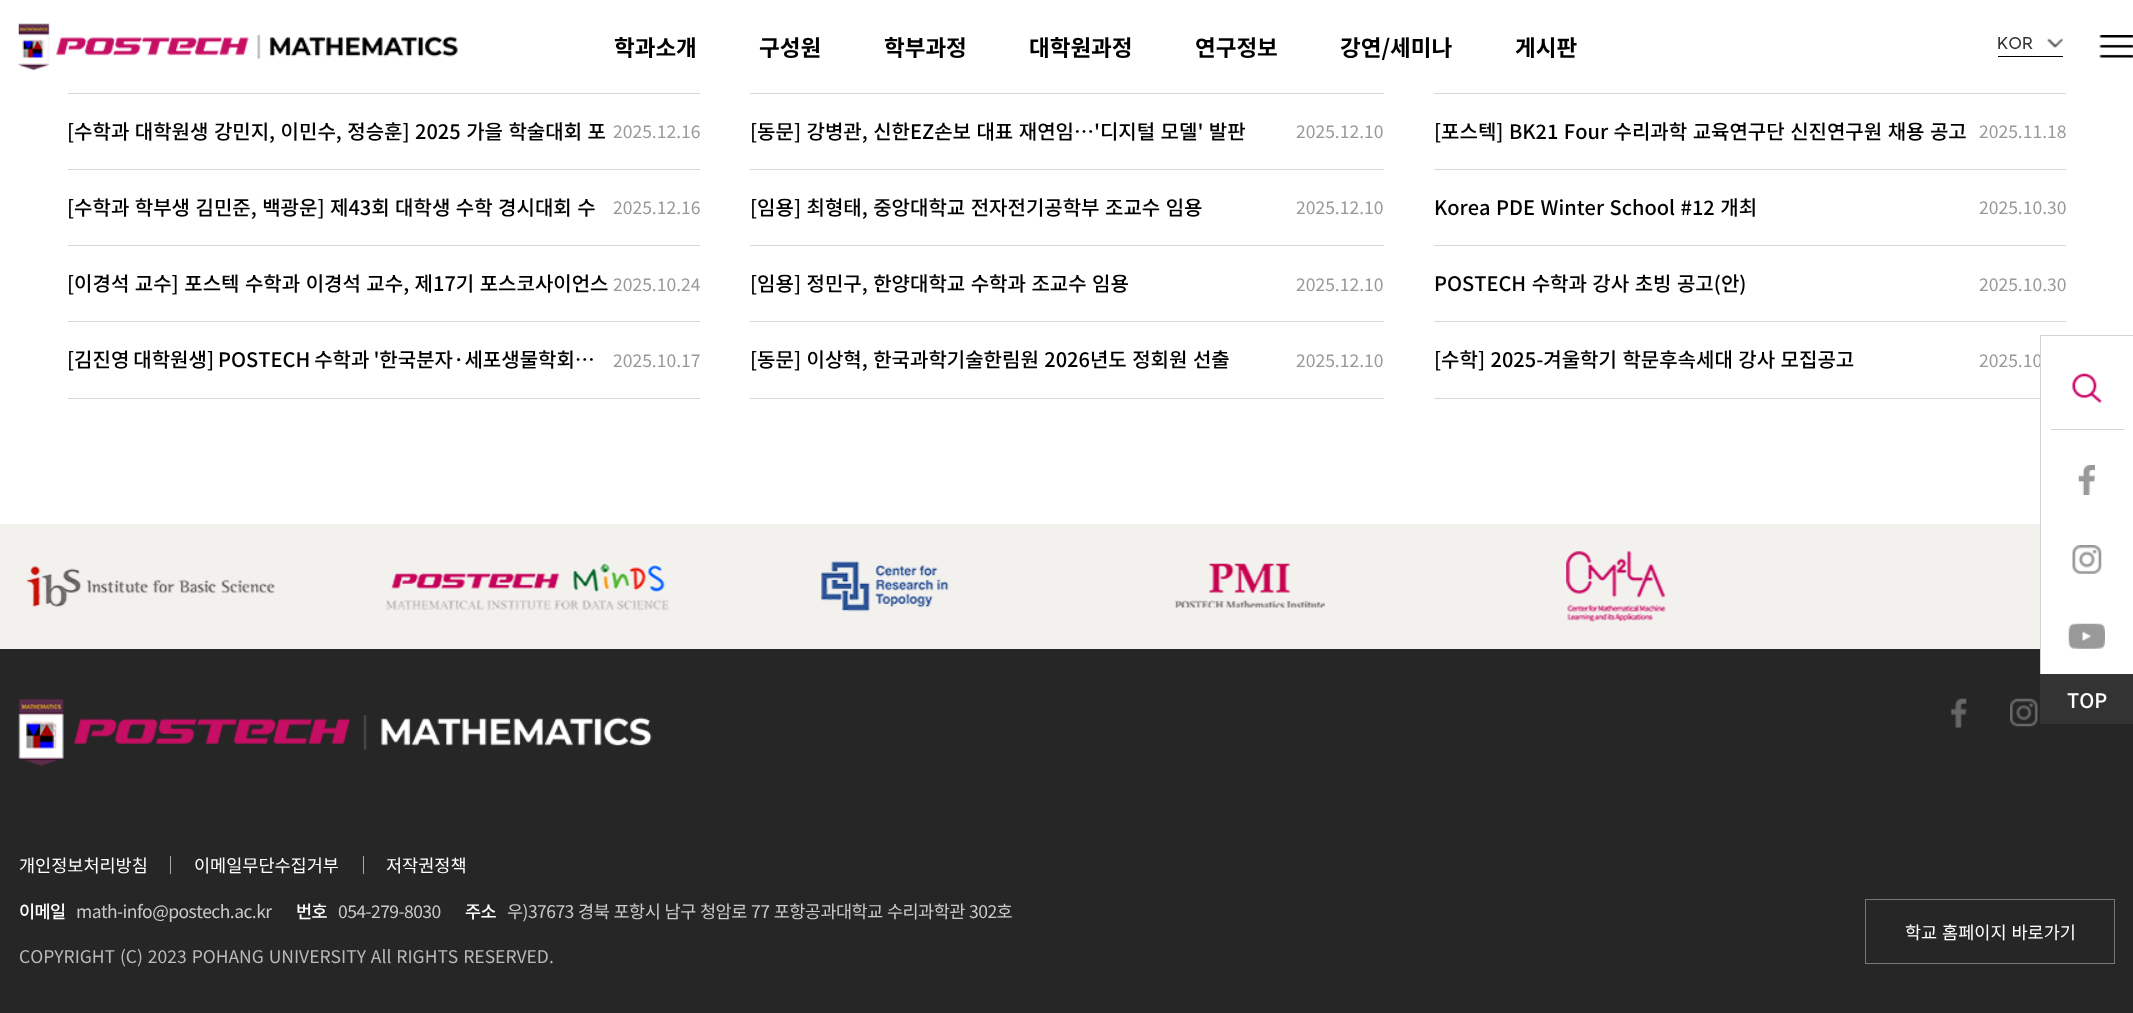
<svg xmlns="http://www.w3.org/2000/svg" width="2133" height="1013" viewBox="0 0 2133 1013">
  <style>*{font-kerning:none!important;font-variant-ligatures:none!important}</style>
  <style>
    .t1 { font: bold 22.5px Noto Sans KR; fill: #000; }
    .t2 { font: bold 16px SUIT; fill: #333; }
    .t3 { font: 500 20px Noto Sans KR; fill: #000; }
    .t4 { font: 17.5px Noto Sans KR; fill: #999; }
    .t5 { font: 500 20px Noto Sans KR; fill: #fff; }
    .t6 { font: 17.5px Noto Sans KR; fill: #fff; }
    .t7 { font: 500 17.5px Noto Sans KR; letter-spacing: -0.55px; fill: #fff; }
    .t8 { font: 17.5px Noto Sans KR; letter-spacing: -0.55px; fill: #c9c9c9; }
    .t9 { font: 17.5px Noto Sans KR; fill: #bababa; }
  </style>
  <rect width="100%" height="100%" fill="#fff"/>
  <image x="18" y="23" width="440" height="47" href="images/1.png"/>
  <text x="614" y="56" class="t1">학과소개</text>
  <text x="759" y="56" class="t1">구성원</text>
  <text x="884" y="56" class="t1">학부과정</text>
  <text x="1029" y="56" class="t1">대학원과정</text>
  <text x="1195" y="56" class="t1">연구정보</text>
  <text x="1340" y="56" class="t1">강연/세미나</text>
  <text x="1515" y="56" class="t1">게시판</text>
  <rect x="1998" y="56" width="65" height="1" fill="#000002"/>
  <text x="1997" y="49" class="t2">KOR</text>
  <image x="2047" y="38" width="16" height="10" href="images/2.png"/>
  <image x="2099" y="35" width="34" height="23" href="images/3.png"/>
  <rect x="68" y="93" width="632" height="1" fill="#d7d7d7"/>
  <rect x="68" y="169" width="632" height="1" fill="#d7d7d7"/>
  <text x="67" y="139" word-spacing="1" class="t3">[수학과 대학원생 강민지, 이민수, 정승훈] 2025 가을 학술대회 포</text>
  <text x="613" y="138" class="t4">2025.12.16</text>
  <rect x="68" y="245" width="632" height="1" fill="#d7d7d7"/>
  <text x="67" y="215" word-spacing="1" class="t3">[수학과 학부생 김민준, 백광운] 제43회 대학생 수학 경시대회 수</text>
  <text x="613" y="214" class="t4">2025.12.16</text>
  <rect x="68" y="321" width="632" height="1" fill="#d7d7d7"/>
  <text x="67" y="291" word-spacing="1" class="t3">[이경석 교수] 포스텍 수학과 이경석 교수, 제17기 포스코사이언스</text>
  <text x="613" y="291" class="t4">2025.10.24</text>
  <rect x="68" y="398" width="632" height="1" fill="#d7d7d7"/>
  <text x="67" y="367" word-spacing="-0.5" class="t3">[김진영 대학원생] POSTECH 수학과 '한국분자·세포생물학회…</text>
  <text x="613" y="367" class="t4">2025.10.17</text>
  <rect x="750" y="93" width="634" height="1" fill="#d7d7d7"/>
  <rect x="750" y="169" width="634" height="1" fill="#d7d7d7"/>
  <text x="750" y="139" word-spacing="1" class="t3">[동문] 강병관, 신한EZ손보 대표 재연임…'디지털 모델' 발판</text>
  <text x="1296" y="138" class="t4">2025.12.10</text>
  <rect x="750" y="245" width="634" height="1" fill="#d7d7d7"/>
  <text x="750" y="215" word-spacing="1" class="t3">[임용] 최형태, 중앙대학교 전자전기공학부 조교수 임용</text>
  <text x="1296" y="214" class="t4">2025.12.10</text>
  <rect x="750" y="321" width="634" height="1" fill="#d7d7d7"/>
  <text x="750" y="291" word-spacing="1" class="t3">[임용] 정민구, 한양대학교 수학과 조교수 임용</text>
  <text x="1296" y="291" class="t4">2025.12.10</text>
  <rect x="750" y="398" width="634" height="1" fill="#d7d7d7"/>
  <text x="750" y="367" word-spacing="1" class="t3">[동문] 이상혁, 한국과학기술한림원 2026년도 정회원 선출</text>
  <text x="1296" y="367" class="t4">2025.12.10</text>
  <rect x="1434" y="93" width="632" height="1" fill="#d7d7d7"/>
  <rect x="1434" y="169" width="632" height="1" fill="#d7d7d7"/>
  <text x="1434" y="139" word-spacing="1" class="t3">[포스텍] BK21 Four 수리과학 교육연구단 신진연구원 채용 공고</text>
  <text x="1979" y="138" class="t4">2025.11.18</text>
  <rect x="1434" y="245" width="632" height="1" fill="#d7d7d7"/>
  <text x="1434" y="215" word-spacing="1" class="t3">Korea PDE Winter School #12 개최</text>
  <text x="1979" y="214" class="t4">2025.10.30</text>
  <rect x="1434" y="321" width="632" height="1" fill="#d7d7d7"/>
  <text x="1434" y="291" word-spacing="1" class="t3">POSTECH 수학과 강사 초빙 공고(안)</text>
  <text x="1979" y="291" class="t4">2025.10.30</text>
  <rect x="1434" y="398" width="606" height="1" fill="#d7d7d7"/>
  <text x="1434" y="367" word-spacing="1" class="t3">[수학] 2025-겨울학기 학문후속세대 강사 모집공고</text>
  <text x="1979" y="367" class="t4">2025.10</text>
  <rect x="0" y="649" width="2133" height="364" fill="#262626"/>
  <rect x="2041" y="356" width="92" height="318" fill="#fff"/>
  <rect x="2040" y="335" width="93" height="1" fill="#d3d3d3"/>
  <rect x="2040" y="335" width="1" height="339" fill="#d3d3d3"/>
  <image x="2072" y="373" width="30" height="30" href="images/4.png"/>
  <rect x="2051" y="429" width="73" height="1" fill="#d3d3d3"/>
  <image x="2078" y="465" width="17" height="30" href="images/5.png"/>
  <image x="2072" y="545" width="30" height="29" href="images/6.png"/>
  <image x="2068" y="623" width="37" height="26" href="images/7.png"/>
  <rect x="2040" y="674" width="93" height="50" fill="#333"/>
  <text x="2067" y="708" class="t5">TOP</text>
  <rect x="0" y="524" width="2040" height="125" fill="#f3f1ee"/>
  <image x="26" y="566" width="249" height="41" href="images/8.png"/>
  <image x="386" y="563" width="283" height="47" href="images/9.png"/>
  <image x="821" y="561" width="128" height="51" href="images/10.png"/>
  <image x="1174" y="563" width="151" height="45" href="images/11.png"/>
  <image x="1566" y="551" width="100" height="71" href="images/12.png"/>
  <image x="18" y="698" width="634" height="69" href="images/13.png"/>
  <text x="19" y="872" class="t6">개인정보처리방침</text>
  <rect x="170" y="856" width="1" height="18" fill="#a8a9ad"/>
  <text x="194" y="872" class="t6">이메일무단수집거부</text>
  <rect x="363" y="856" width="1" height="18" fill="#a8a9ad"/>
  <text x="386" y="872" class="t6">저작권정책</text>
  <text x="19" y="918" class="t7">이메일</text>
  <text x="76" y="918" class="t8">math-info@postech.ac.kr</text>
  <text x="296" y="918" class="t7">번호</text>
  <text x="338" y="918" class="t8">054-279-8030</text>
  <text x="465" y="918" class="t7">주소</text>
  <text x="507" y="918" word-spacing="1" class="t8">우)37673 경북 포항시 남구 청암로 77 포항공과대학교 수리과학관 302호</text>
  <text x="19" y="963" word-spacing="1" class="t9">COPYRIGHT (C) 2023 POHANG UNIVERSITY All RIGHTS RESERVED.</text>
  <image x="1951" y="698" width="16" height="30" href="images/14.png"/>
  <image x="2010" y="698" width="28" height="29" href="images/15.png"/>
  <rect x="1865.5" y="899.5" width="249" height="64" fill="none" stroke="#787878"/>
  <text x="1905" y="939" word-spacing="1" class="t6">학교 홈페이지 바로가기</text>
</svg>
